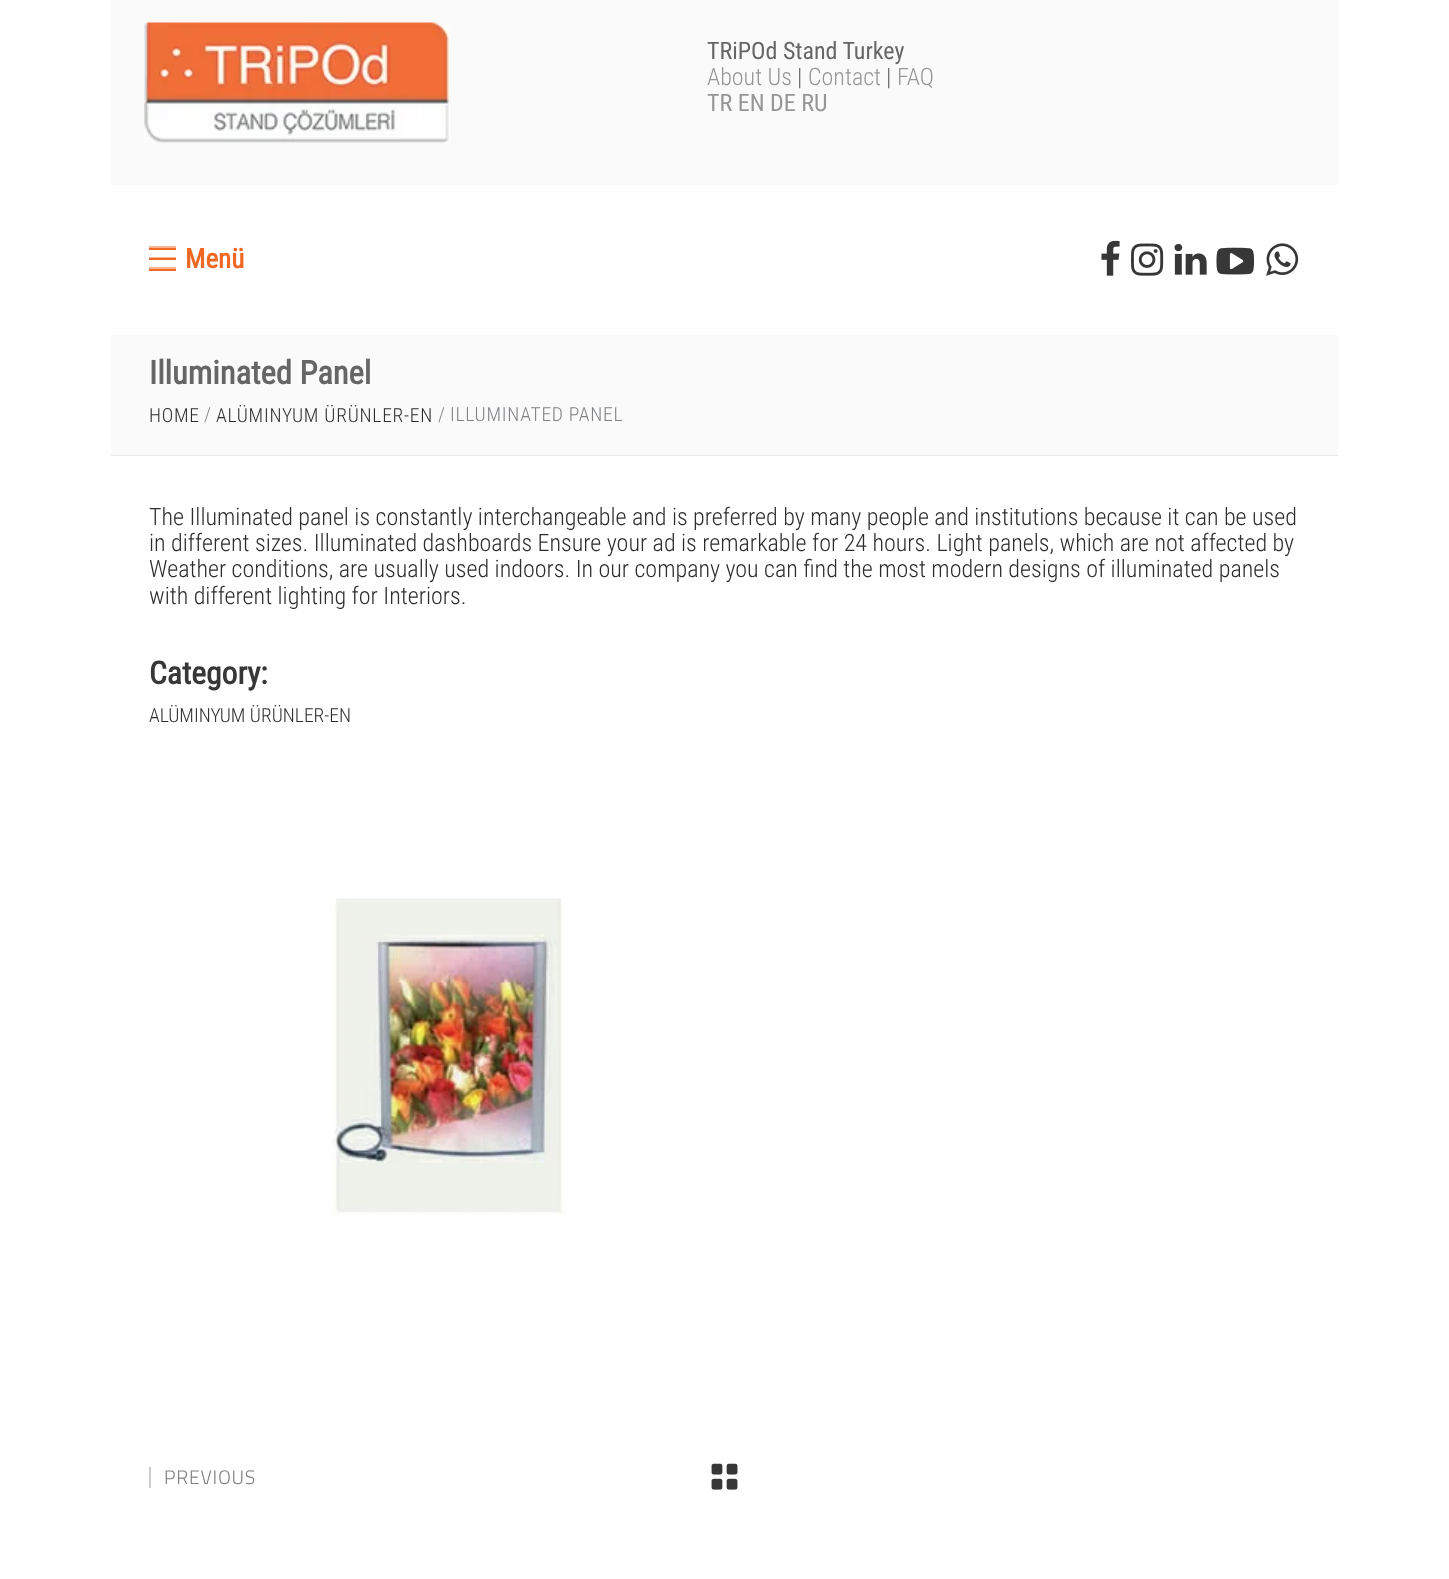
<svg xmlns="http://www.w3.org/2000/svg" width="1449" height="1579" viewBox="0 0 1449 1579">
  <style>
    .t1 { font: 24px Roboto Condensed; fill: #666; }
    .t2 { font: 300 24px Roboto Condensed; fill: #969696; }
    .t3 { font: 300 24px Roboto Condensed; fill: #666; }
    .t4 { font: 24px Roboto Condensed; fill: #969696; }
    .t5 { font: bold 27px Roboto Condensed; fill: #ef6824; }
    .t6 { font: bold 32.5px Roboto Condensed; fill: #666; }
    .t7 { font: 300 19.5px Roboto Condensed; letter-spacing: 0.75px; fill: #2d2d2d; }
    .t8 { font: 300 19.5px Roboto Condensed; letter-spacing: 0.75px; fill: #808285; }
    .t9 { font: 300 24px Roboto Condensed; fill: #2d2d2d; }
    .t10 { font: bold 31.5px Roboto Condensed; fill: #373737; }
    .t11 { font: 300 19.5px Roboto Condensed; fill: #2d2d2d; }
    .t12 { font: 300 19.5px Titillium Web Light; letter-spacing: 0.75px; fill: #808285; }
  </style>
  <rect width="100%" height="100%" fill="#fff"/>
  <rect x="149" y="257" width="27" height="1" fill="#f7b492"/>
  <rect x="111" y="0" width="1227" height="185" fill="#fafafa"/>
  <image x="144" y="22" width="306" height="121" href="images/1.png"/>
  <text x="707" y="59" class="t1">TRiPOd Stand Turkey</text>
  <text x="707" y="85" class="t2">About Us</text>
  <text x="797" y="85" class="t3">|</text>
  <text x="808" y="85" class="t2">Contact</text>
  <text x="886" y="85" class="t3">|</text>
  <text x="897" y="85" class="t2">FAQ</text>
  <text x="707" y="111" class="t4">TR EN DE RU</text>
  <rect x="149" y="248" width="27" height="2" fill="#ef6824"/>
  <rect x="149" y="246" width="27" height="2" fill="#f7b492"/>
  <rect x="149" y="258" width="27" height="2" fill="#ef6824"/>
  <rect x="149" y="269" width="27" height="2" fill="#ef6824"/>
  <rect x="149" y="267" width="27" height="2" fill="#f7b492"/>
  <text x="185" y="268" class="t5">Menü</text>
  <image x="1101" y="240" width="19" height="36" href="images/2.png"/>
  <image x="1131" y="243" width="33" height="33" href="images/3.png"/>
  <image x="1174" y="244" width="33" height="31" href="images/4.png"/>
  <image x="1216" y="247" width="38" height="28" href="images/5.png"/>
  <image x="1266" y="243" width="33" height="33" href="images/6.png"/>
  <rect x="111" y="335" width="1227" height="120" fill="#fafafa"/>
  <rect x="111" y="455" width="1227" height="1" fill="#e9e9e9"/>
  <text x="149" y="384" class="t6">Illuminated Panel</text>
  <text x="149" y="422" class="t7">HOME</text>
  <text x="204" y="421" class="t8">/</text>
  <text x="216" y="422" class="t7">ALÜMINYUM ÜRÜNLER-EN</text>
  <text x="438" y="421" class="t8">/</text>
  <text x="450" y="421" class="t8">ILLUMINATED PANEL</text>
  <text x="149" y="525" class="t9">The Illuminated panel is constantly interchangeable and is preferred by many people and institutions because it can be used</text>
  <text x="149" y="551" class="t9">in different sizes. Illuminated dashboards Ensure your ad is remarkable for 24 hours. Light panels, which are not affected by</text>
  <text x="149" y="577" class="t9">Weather conditions, are usually used indoors. In our company you can find the most modern designs of illuminated panels</text>
  <text x="149" y="604" class="t9">with different lighting for Interiors.</text>
  <text x="149" y="684" class="t10">Category:</text>
  <text x="149" y="722" class="t11">ALÜMINYUM ÜRÜNLER-EN</text>
  <image x="331" y="898" width="235" height="319" href="images/7.png"/>
  <rect x="149" y="1467" width="2" height="21" fill="#cbcccd"/>
  <text x="164" y="1484" class="t12">PREVIOUS</text>
  <image x="711" y="1463" width="27" height="27" href="images/8.png"/>
</svg>
